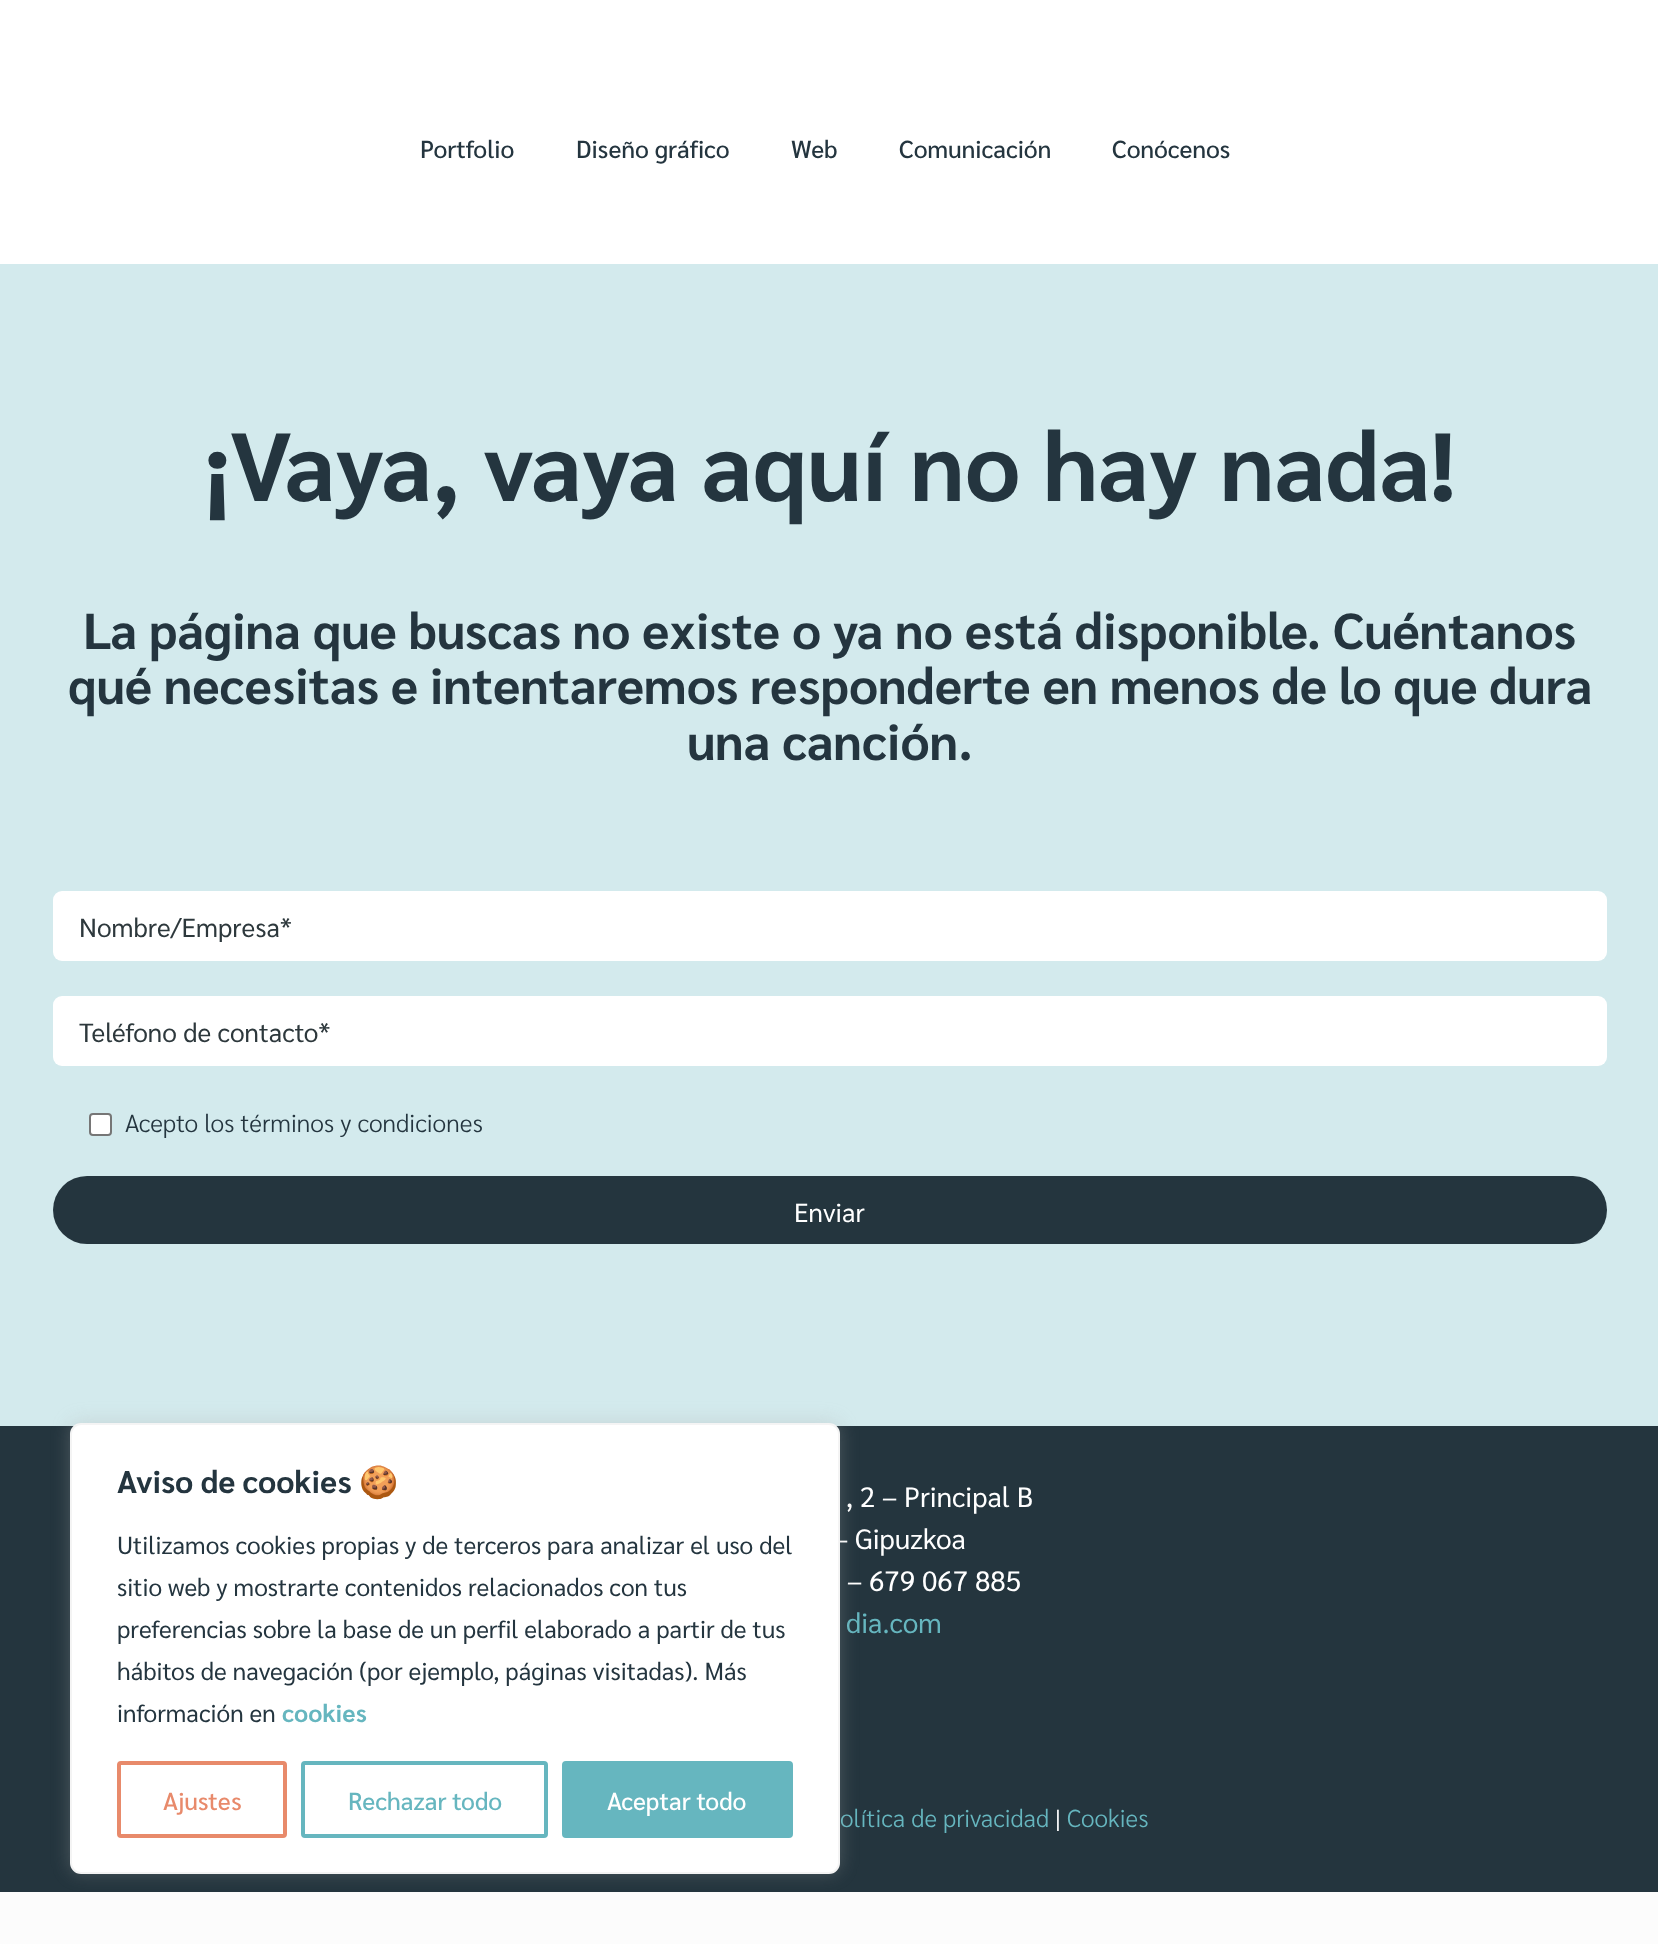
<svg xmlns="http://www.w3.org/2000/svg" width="1658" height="1944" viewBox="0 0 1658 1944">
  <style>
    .t1 { font: 500 24.5px Sarabun; fill: #24353f; }
    .t2 { font: bold 96.5px Sarabun; fill: #24353f; }
    .t3 { font: bold 50.45px Sarabun; fill: #24353f; }
    .t4 { font: 26.25px Sarabun; fill: #2d383c; }
    .t5 { font: 300 24.75px Sarabun; fill: #24353f; }
    .t6 { font: 26.25px Sarabun; fill: #fff; }
    .t7 { font: 28px Sarabun; fill: #fff; }
    .t8 { font: 28px Sarabun; fill: #66b6bf; }
    .t9 { font: 300 24.5px Sarabun; fill: #66b6bf; }
    .t10 { font: 300 24.5px Sarabun; fill: #fff; }
    .t11 { font: bold 31.5px Sarabun; fill: #24353f; }
    .t12 { font: bold 31.5px Noto Color Emoji; fill: #24353f; }
    .t13 { font: 24.5px Sarabun; fill: #24353f; }
    .t14 { font: bold 24.5px Sarabun; fill: #66b6bf; }
    .t15 { font: 500 24.5px Sarabun; fill: #e88a6b; }
    .t16 { font: 500 24.5px Sarabun; fill: #66b6bf; }
    .t17 { font: 500 24.5px Sarabun; fill: #fff; }
  </style>
  <defs>
    <clipPath id="clip1"><rect x="79" y="908" width="1501" height="34"/></clipPath>
  </defs>
  <rect width="100%" height="100%" fill="#fcfcfc"/>
  <rect x="0" y="0" width="1658" height="264" fill="#fff"/>
  <text x="420" y="158" class="t1">Portfolio</text>
  <text x="576" y="158" class="t1">Diseño gráfico</text>
  <text x="791" y="158" class="t1">Web</text>
  <text x="899" y="158" class="t1">Comunicación</text>
  <text x="1112" y="158" class="t1">Conócenos</text>
  <rect x="0" y="264" width="1658" height="1162" fill="#d3eaed"/>
  <text x="205" y="501" class="t2">¡Vaya, vaya aquí no hay nada!</text>
  <text x="83" y="649" class="t3">La página que buscas no existe o ya no está disponible. Cuéntanos</text>
  <text x="68" y="704" class="t3">qué necesitas e intentaremos responderte en menos de lo que dura</text>
  <text x="687" y="760" class="t3">una canción.</text>
  <rect x="53" y="891" width="1554" height="70" rx="9" fill="#fff"/>
  <g clip-path="url(#clip1)">
    <text x="79" y="937" class="t4">Nombre/Empresa*</text>
  </g>
  <rect x="53" y="996" width="1554" height="70" rx="9" fill="#fff"/>
  <text x="79" y="1042" class="t4">Teléfono de contacto*</text>
  <rect x="90" y="1114" width="21" height="21" rx="3" fill="#fff" stroke="#767676" stroke-width="2"/>
  <text x="125" y="1132" class="t5">Acepto los términos y condiciones</text>
  <rect x="53" y="1176" width="1554" height="68" rx="34" fill="#24353e"/>
  <text x="794" y="1222" class="t6">Enviar</text>
  <rect x="0" y="1426" width="1658" height="466" fill="#24353e"/>
  <text x="846" y="1507" class="t7">, 2 – Principal B</text>
  <text x="833" y="1549" class="t7">– Gipuzkoa</text>
  <text x="847" y="1591" class="t7">– 679 067 885</text>
  <text x="846" y="1633" class="t8">dia.com</text>
  <text x="840" y="1827" class="t9">olítica de privacidad</text>
  <text x="1055" y="1827" class="t10">|</text>
  <text x="1067" y="1827" class="t9">Cookies</text>
  <rect x="70" y="1421" width="770" height="452" rx="11" fill="#acabab4d" filter="blur(9px)"/>
  <rect x="71" y="1424" width="768" height="449" rx="10" fill="#fff" stroke="#f4f4f4" stroke-width="2"/>
  <text x="117" y="1493" class="t11">Aviso de cookies</text>
  <text x="359" y="1493" class="t12">🍪</text>
  <text x="117" y="1554" class="t13">Utilizamos cookies propias y de terceros para analizar el uso del</text>
  <text x="117" y="1596" class="t13">sitio web y mostrarte contenidos relacionados con tus</text>
  <text x="117" y="1638" class="t13">preferencias sobre la base de un perfil elaborado a partir de tus</text>
  <text x="117" y="1680" class="t13">hábitos de navegación (por ejemplo, páginas visitadas). Más</text>
  <text x="117" y="1722" class="t13">información en</text>
  <text x="282" y="1722" class="t14">cookies</text>
  <rect x="119" y="1763" width="166" height="73" rx="2" fill="none" stroke="#e88a6b" stroke-width="4"/>
  <text x="163" y="1810" class="t15">Ajustes</text>
  <rect x="303" y="1763" width="243" height="73" rx="2" fill="none" stroke="#66b6bf" stroke-width="4"/>
  <text x="348" y="1810" class="t16">Rechazar todo</text>
  <rect x="564" y="1763" width="227" height="73" rx="2" fill="#66b6bf" stroke="#66b6bf" stroke-width="4"/>
  <text x="607" y="1810" class="t17">Aceptar todo</text>
</svg>
